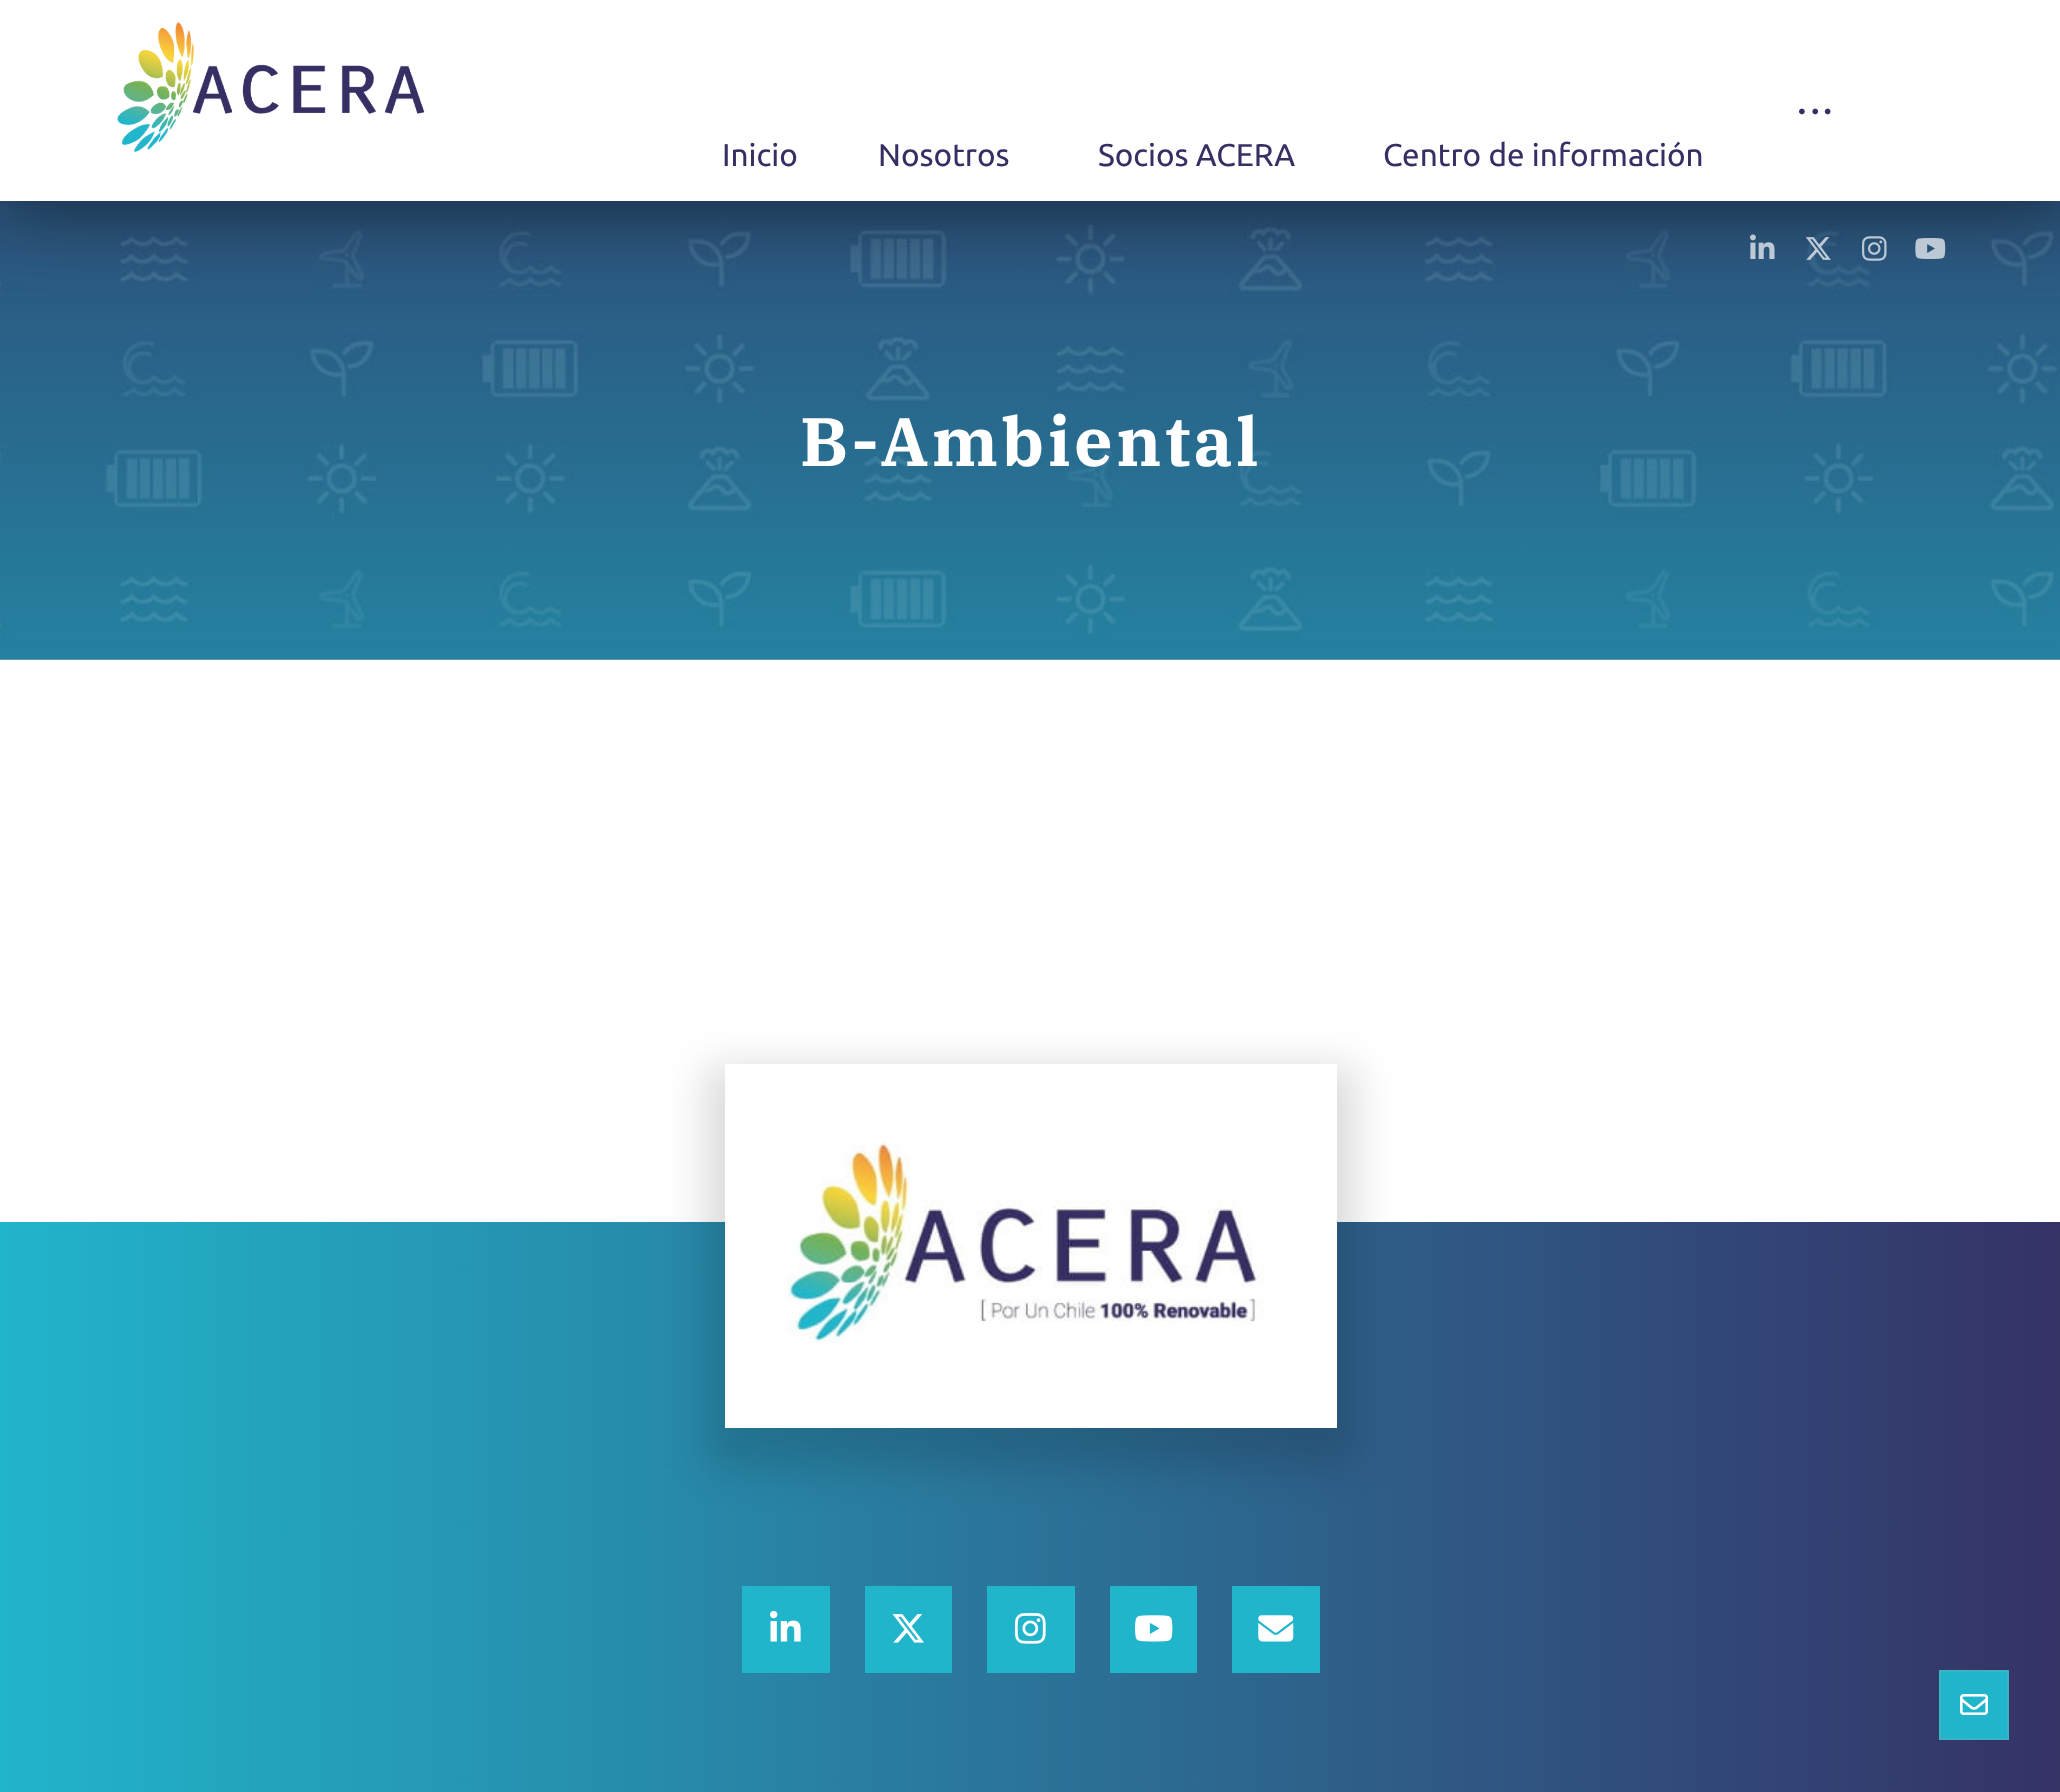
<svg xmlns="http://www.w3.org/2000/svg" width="2060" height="1792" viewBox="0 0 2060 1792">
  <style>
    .t1 { font: 31.5px Ubuntu; fill: #352f63; }
    .t2 { font: bold 68.25px IBM Plex Serif; letter-spacing: 3.5px; fill: #fff; }
  </style>
  <defs>
    <linearGradient id="g1" gradientUnits="userSpaceOnUse" x1="0" y1="1700" x2="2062" y2="1700"><stop offset="0" stop-color="#21b4cb"/><stop offset="1" stop-color="#353266"/></linearGradient>
  </defs>
  <rect width="100%" height="100%" fill="#fff"/>
  <image x="0" y="201" width="2060" height="459" href="images/7.png"/>
  <rect x="-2" y="-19" width="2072" height="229" fill="#00000078" filter="blur(37.5px)"/>
  <rect x="0" y="0" width="2060" height="201" fill="#fff"/>
  <image x="117" y="22" width="308" height="130" href="images/1.png"/>
  <image x="1799" y="108" width="32" height="7" href="images/2.png"/>
  <text x="722" y="166" class="t1">Inicio</text>
  <text x="878" y="166" class="t1">Nosotros</text>
  <text x="1098" y="166" class="t1">Socios ACERA</text>
  <text x="1383" y="166" class="t1">Centro de información</text>
  <image x="1750" y="234" width="25" height="25" href="images/3.png"/>
  <image x="1805" y="237" width="26" height="23" href="images/4.png"/>
  <image x="1862" y="236" width="25" height="25" href="images/5.png"/>
  <image x="1915" y="238" width="31" height="21" href="images/6.png"/>
  <text x="800" y="466" class="t2">B-Ambiental</text>
  <rect x="0" y="1222" width="2060" height="570" fill="url(#g1)"/>
  <rect x="705" y="1066" width="651" height="402" fill="#00000024" filter="blur(20px)"/>
  <rect x="725" y="1064" width="612" height="364" fill="#fff"/>
  <image x="777" y="1140" width="487" height="203" href="images/8.png"/>
  <rect x="742" y="1586" width="88" height="87" fill="#21b5cc"/>
  <image x="770" y="1610" width="31" height="32" href="images/9.png"/>
  <rect x="865" y="1586" width="87" height="87" fill="#21b5cc"/>
  <image x="892" y="1614" width="32" height="29" href="images/10.png"/>
  <rect x="987" y="1586" width="88" height="87" fill="#21b5cc"/>
  <image x="1015" y="1613" width="31" height="31" href="images/11.png"/>
  <rect x="1110" y="1586" width="87" height="87" fill="#21b5cc"/>
  <image x="1135" y="1615" width="38" height="27" href="images/12.png"/>
  <rect x="1232" y="1586" width="88" height="87" fill="#21b5cc"/>
  <image x="1258" y="1615" width="36" height="27" href="images/13.png"/>
  <rect x="1940" y="1671" width="68" height="68" fill="#21b5cc" stroke="#3cb2c5" stroke-width="2"/>
  <image x="1960" y="1694" width="28" height="21" href="images/14.png"/>
</svg>
